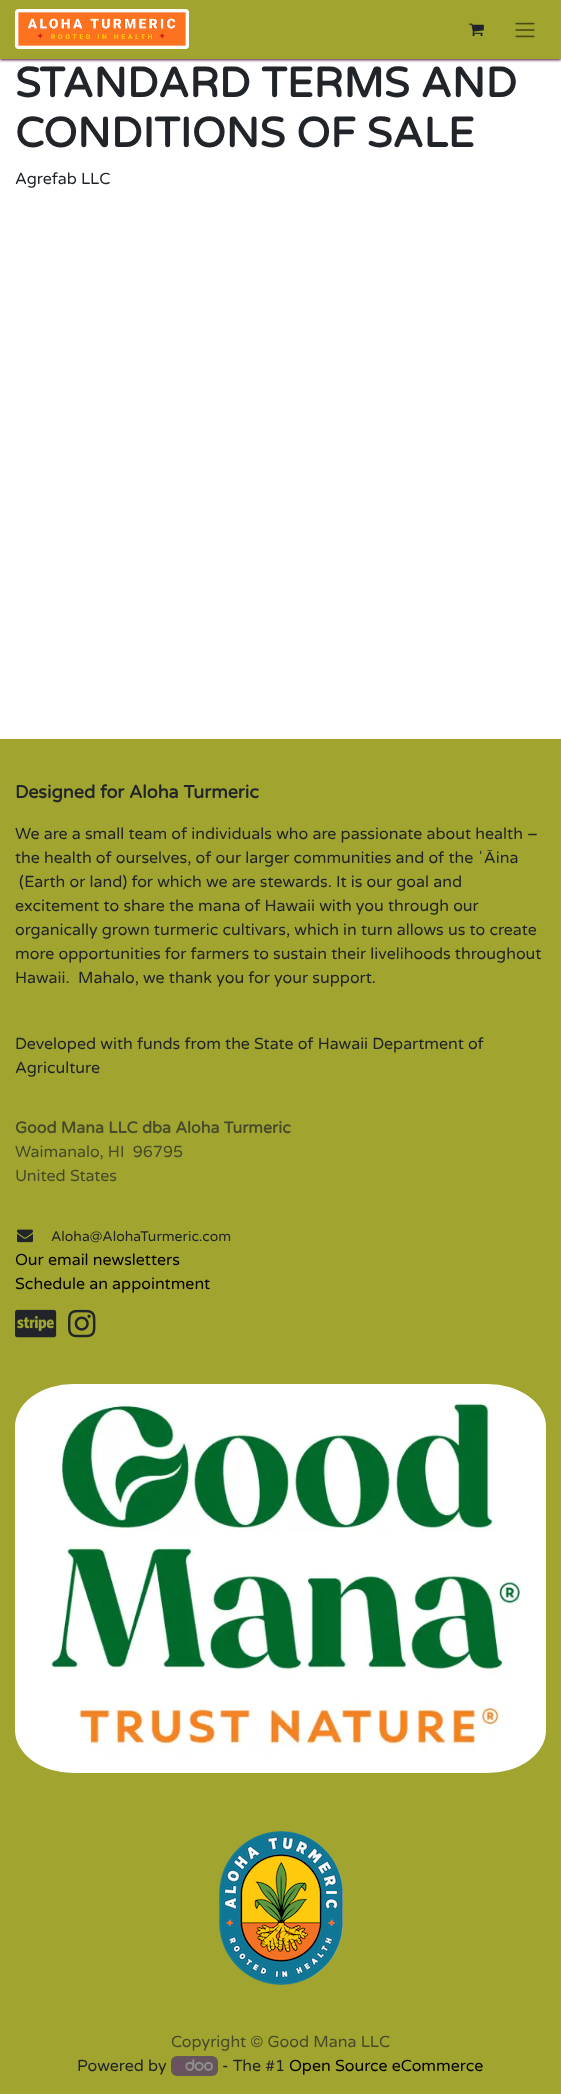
<svg xmlns="http://www.w3.org/2000/svg" width="561" height="2094" viewBox="0 0 561 2094">
  <style>
    .t1 { font: bold 41.9px Varela Round; fill: #212529; }
    .t2 { font: 16px Varela Round; fill: #212529; }
    .t3 { font: bold 18px Varela Round; fill: #212529; }
    .t4 { font: bold 16px Varela Round; fill: #474b2b; }
    .t5 { font: 16px Varela Round; fill: #474b2b; }
    .t6 { font: 14px Varela Round; fill: #212529; }
    .t7 { font: 16px Varela Round; fill: #000; }
  </style>
  <rect width="100%" height="100%" fill="#fff"/>
  <rect x="0" y="1" width="561" height="59" fill="#4a1031" filter="blur(1.5px)"/>
  <rect x="0" y="0" width="561" height="59" fill="#a1a52f"/>
  <image x="15" y="9" width="174" height="40" href="images/1.png"/>
  <image x="469" y="23" width="15" height="14" href="images/2.png"/>
  <image x="515" y="22" width="20" height="16" href="images/3.png"/>
  <text x="15" y="97" class="t1">STANDARD TERMS AND</text>
  <text x="15" y="147" class="t1">CONDITIONS OF SALE</text>
  <text x="15" y="184" class="t2">Agrefab LLC</text>
  <rect x="0" y="739" width="561" height="1355" fill="#a1a52f"/>
  <text x="15" y="798" class="t3">Designed for Aloha Turmeric</text>
  <text x="15" y="839" class="t2">We are a small team of individuals who are passionate about health –</text>
  <text x="15" y="863" class="t2">the health of ourselves, of our larger communities and of the ʻĀina</text>
  <text x="19" y="887" class="t2">(Earth or land) for which we are stewards. It is our goal and</text>
  <text x="15" y="911" class="t2">excitement to share the mana of Hawaii with you through our</text>
  <text x="15" y="935" class="t2">organically grown turmeric cultivars, which in turn allows us to create</text>
  <text x="15" y="959" class="t2">more opportunities for farmers to sustain their livelihoods throughout</text>
  <text x="15" y="983" class="t2" xml:space="preserve">Hawaii.  Mahalo, we thank you for your support.</text>
  <text x="15" y="1049" class="t2">Developed with funds from the State of Hawaii Department of</text>
  <text x="15" y="1073" class="t2">Agriculture</text>
  <text x="15" y="1133" class="t4">Good Mana LLC dba Aloha Turmeric</text>
  <text x="15" y="1157" class="t5" xml:space="preserve">Waimanalo, HI  96795</text>
  <text x="15" y="1181" class="t5">United States</text>
  <image x="17" y="1229" width="16" height="14" href="images/4.png"/>
  <text x="51" y="1241" class="t6">Aloha@AlohaTurmeric.com</text>
  <text x="15" y="1265" class="t7">Our email newsletters</text>
  <text x="15" y="1289" class="t7">Schedule an appointment</text>
  <image x="15" y="1309" width="42" height="29" href="images/5.png"/>
  <image x="68" y="1309" width="28" height="29" href="images/6.png"/>
  <image x="15" y="1384" width="531" height="389" href="images/7.png"/>
  <image x="219" y="1831" width="124" height="154" href="images/8.png"/>
  <text x="171" y="2047" class="t5">Copyright © Good Mana LLC</text>
  <text x="77" y="2071" class="t2">Powered by</text>
  <rect x="171" y="2056" width="47" height="20" rx="6" fill="#66555c"/>
  <image x="176" y="2059" width="37" height="12" href="images/9.png"/>
  <text x="222" y="2071" class="t2">- The #1</text>
  <text x="289" y="2071" class="t7">Open Source eCommerce</text>
</svg>
